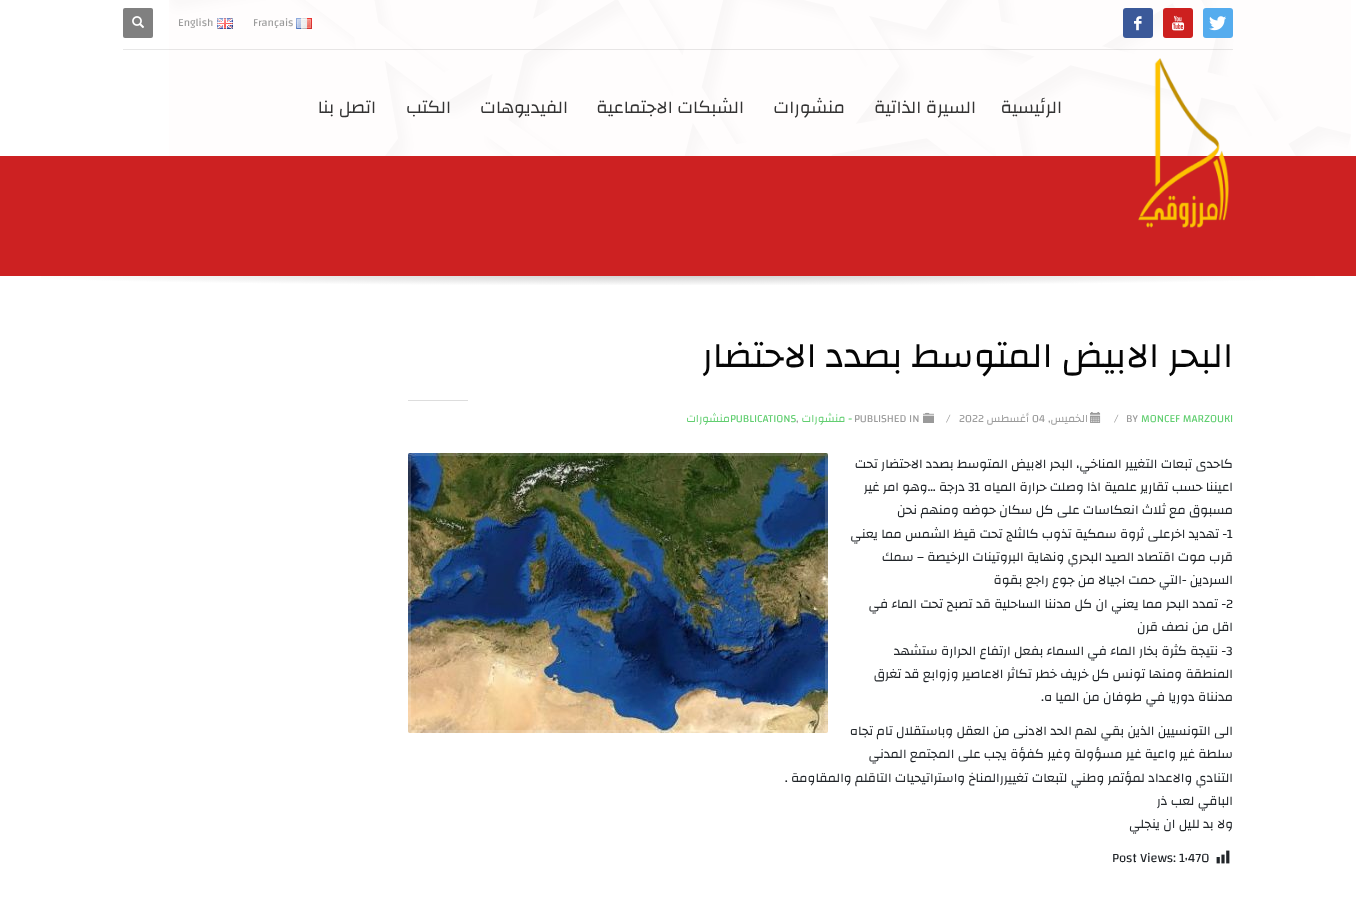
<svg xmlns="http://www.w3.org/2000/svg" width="1356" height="907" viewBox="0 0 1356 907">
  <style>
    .t1 { font: 11px Changa; fill: #9a9a9a; }
    .t2 { font: 18px Changa; direction: rtl; fill: #333; }
    .t3 { font: 36px Changa; direction: rtl; fill: #050505; }
    .t4 { font: 11px Changa; fill: #61ce70; }
    .t5 { font: 11px Changa; direction: rtl; fill: #9a9a9a; }
    .t6 { font: 11px Changa; direction: rtl; fill: #61ce70; }
    .t7 { font: 13px Changa; direction: rtl; fill: #212529; }
    .t8 { font: 13px Changa; fill: #212529; }
  </style>
  <defs>
    <radialGradient id="g1" gradientUnits="userSpaceOnUse" cx="0" cy="0" r="1" gradientTransform="matrix(959 0 0 14 678 276)"><stop offset="0" stop-color="#d1d1d1"/><stop offset="0.7" stop-color="#fff"/></radialGradient>
  </defs>
  <rect width="100%" height="100%" fill="#fff"/>
  <image x="169" y="0" width="1182" height="156" href="images/1.png"/>
  <rect x="1203" y="8" width="30" height="30" rx="3" fill="#55acee"/>
  <image x="1209" y="16" width="17" height="15" href="images/2.png"/>
  <rect x="1163" y="8" width="30" height="30" rx="3" fill="#cd201f"/>
  <image x="1172" y="15" width="13" height="16" href="images/3.png"/>
  <rect x="1123" y="8" width="30" height="30" rx="3" fill="#3b5999"/>
  <image x="1134" y="16" width="8" height="15" href="images/4.png"/>
  <image x="296" y="18" width="16" height="11" href="images/5.png"/>
  <text x="253" y="26" class="t1">Français</text>
  <image x="217" y="18" width="16" height="11" href="images/6.png"/>
  <text x="178" y="26" class="t1">English</text>
  <rect x="123" y="8" width="30" height="30" rx="2" fill="#808080"/>
  <image x="132" y="16" width="12" height="12" href="images/7.png"/>
  <rect x="123" y="49" width="1110" height="1" fill="#87878733"/>
  <rect x="0" y="156" width="1356" height="120" fill="#cd2122"/>
  <image x="1138" y="58" width="91" height="170" href="images/8.png"/>
  <text x="1062" y="113" class="t2">الرئيسية</text>
  <text x="976" y="113" class="t2">السيرة الذاتية</text>
  <text x="845" y="113" class="t2">منشورات</text>
  <text x="744" y="113" class="t2">الشبكات الاجتماعية</text>
  <text x="568" y="113" class="t2">الفيديوهات</text>
  <text x="451" y="113" class="t2">الكتب</text>
  <text x="376" y="113" class="t2">اتصل بنا</text>
  <rect x="41" y="276" width="1274" height="9" fill="url(#g1)"/>
  <text x="1233" y="367" class="t3">البحر الابيض المتوسط بصدد الاحتضار</text>
  <rect x="408" y="400" width="60" height="1" fill="#ddd"/>
  <text x="1141" y="422" class="t4">MONCEF MARZOUKI</text>
  <text x="1126" y="422" class="t1">BY</text>
  <text x="1114" y="422" class="t1">/</text>
  <image x="1090" y="412" width="11" height="11" href="images/9.png"/>
  <text x="1088" y="422" class="t5">الخميس,</text>
  <text x="1032" y="422" class="t1">04</text>
  <text x="1029" y="422" class="t5">أغسطس</text>
  <text x="959" y="422" class="t1">2022</text>
  <text x="946" y="422" class="t1">/</text>
  <image x="923" y="412" width="11" height="11" href="images/10.png"/>
  <text x="854" y="422" class="t1">PUBLISHED IN</text>
  <text x="852" y="422" class="t6">- منشورات</text>
  <text x="796" y="422" class="t1">,</text>
  <text x="730" y="422" class="t4">PUBLICATIONS</text>
  <text x="730" y="422" class="t6">منشورات</text>
  <text x="1233" y="468" class="t7">كاحدى تبعات التغيير المناخي، البحر الابيض المتوسط بصدد الاحتضار تحت</text>
  <text x="1233" y="491" class="t7">اعيننا حسب تقارير علمية اذا وصلت حرارة المياه</text>
  <text x="968" y="491" class="t8">31</text>
  <text x="965" y="491" class="t7">درجة …وهو امر غير</text>
  <text x="1233" y="514" class="t7">مسبوق مع ثلاث انعكاسات على كل سكان حوضه ومنهم نحن</text>
  <text x="1227" y="538" class="t8">1</text>
  <text x="1227" y="538" class="t7">- تهديد اخرعلى ثروة سمكية تذوب كالثلج تحت قيظ الشمس مما يعني</text>
  <text x="1233" y="561" class="t7">قرب موت اقتصاد الصيد البحري ونهاية البروتينات الرخيصة – سمك</text>
  <text x="1233" y="584" class="t7">السردين -التي حمت اجيالا من جوع راجع بقوة</text>
  <text x="1226" y="608" class="t8">2</text>
  <text x="1226" y="608" class="t7">- تمدد البحر مما يعني ان كل مدننا الساحلية قد تصبح تحت الماء في</text>
  <text x="1233" y="631" class="t7">اقل من نصف قرن</text>
  <text x="1226" y="655" class="t7">- نتيجة كثرة بخار الماء في السماء بفعل ارتفاع الحرارة ستشهد</text>
  <text x="1226" y="655" class="t8">3</text>
  <text x="1233" y="678" class="t7">المنطقة ومنها تونس كل خريف خطر تكاثر الاعاصير وزوابع قد تغرق</text>
  <text x="1233" y="701" class="t7">مدنناة دوريا في طوفان من الميا ه.</text>
  <image x="408" y="453" width="420" height="280" href="images/11.png"/>
  <rect x="409.5" y="454.5" width="417" height="277" rx="1.5" fill="none" stroke="#ffffff26" stroke-width="3"/>
  <text x="1233" y="735" class="t7">الى التونسيين الذين بقي لهم الحد الادنى من العقل وباستقلال تام تجاه</text>
  <text x="1233" y="758" class="t7">سلطة غير واعية غير مسؤولة وغير كفؤة يجب على المجتمع المدني</text>
  <text x="1233" y="782" class="t7">التنادي والاعداد لمؤتمر وطني لتبعات تغييررالمناخ واستراتيحيات التاقلم والمقاومة .</text>
  <text x="1233" y="805" class="t7">الباقي لعب ذر</text>
  <text x="1233" y="828" class="t7">ولا بد لليل ان ينجلي</text>
  <image x="1216" y="850" width="14" height="14" href="images/12.png"/>
  <text x="1112" y="862" class="t8">Post Views: 1٬470</text>
</svg>
